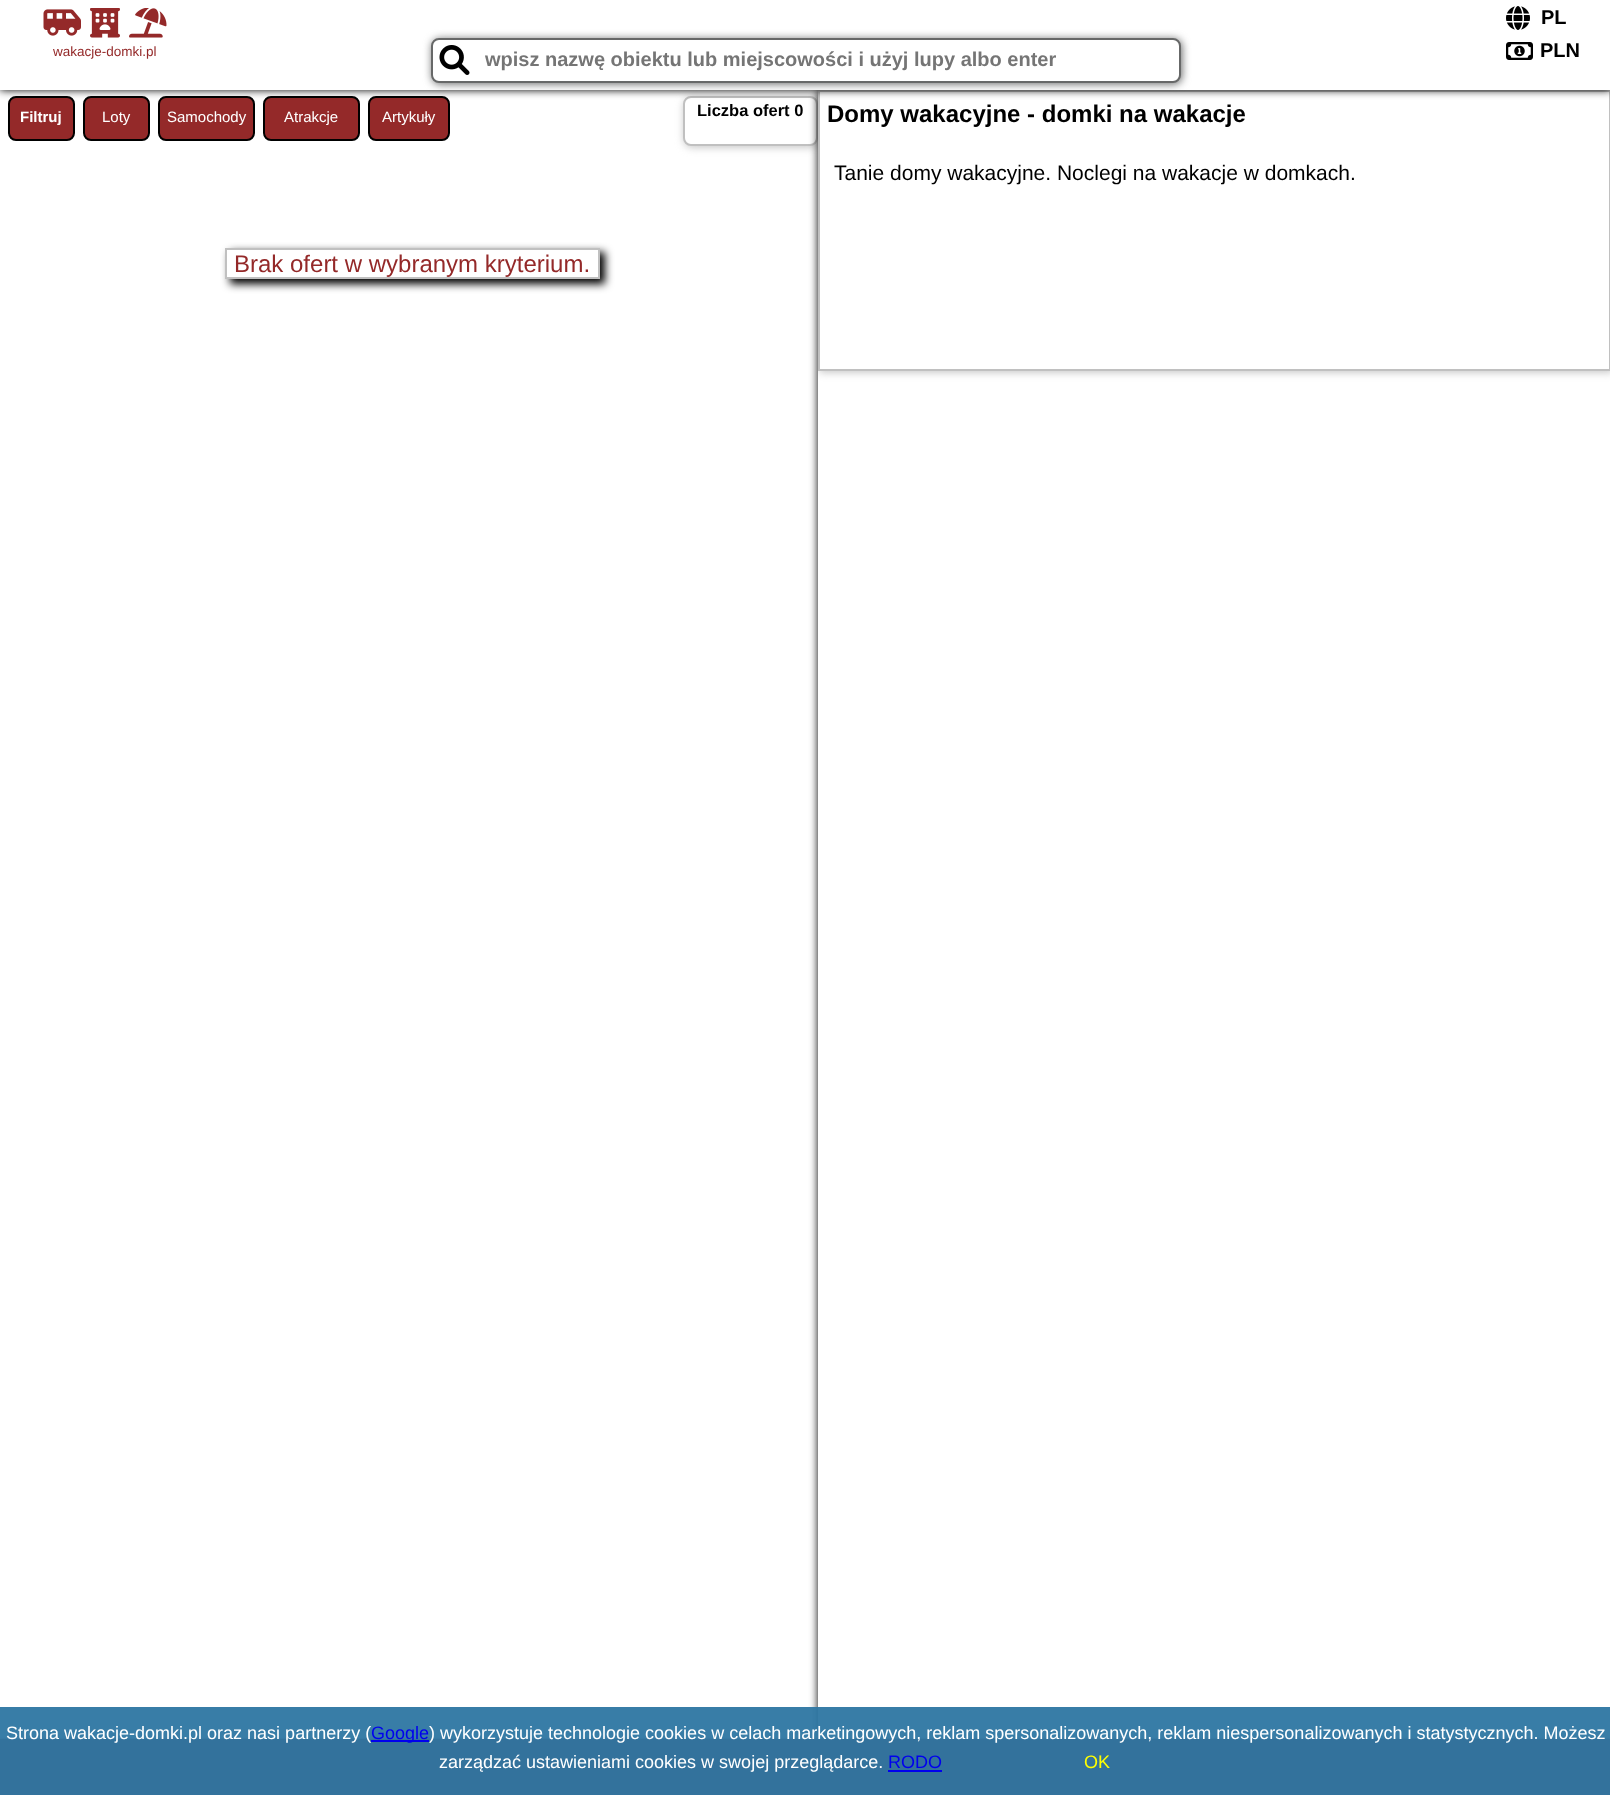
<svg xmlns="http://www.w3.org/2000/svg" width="1610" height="1795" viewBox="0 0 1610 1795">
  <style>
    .t1 { font: bold 20px Liberation Sans; fill: #000; }
    .t2 { font: 13.5px Liberation Sans; fill: #942929; }
    .t3 { font: bold 20px Liberation Sans; fill: #757575; }
    .t4 { font: bold 15px Liberation Sans; fill: #fff; }
    .t5 { font: 15px Liberation Sans; fill: #fff; }
    .t6 { font: bold 16.5px Liberation Sans; fill: #000; }
    .t7 { font: 24px Liberation Sans; fill: #942929; }
    .t8 { font: bold 24px Liberation Sans; fill: #000; }
    .t9 { font: 21px Liberation Sans; fill: #000; }
    .t10 { font: 18px Liberation Sans; fill: #fff; }
    .t11 { font: 18px Liberation Sans; fill: #00e; }
    .t12 { font: 18px Liberation Sans; fill: #ff0; }
  </style>
  <defs>
    <clipPath id="clip1"><path d="M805 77H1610V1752H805ZM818 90H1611V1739H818Z" clip-rule="evenodd"/></clipPath>
    <clipPath id="clip2"><rect x="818" y="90" width="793" height="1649"/></clipPath>
    <clipPath id="clip3"><path d="M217 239H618V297H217ZM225 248H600V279H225Z" clip-rule="evenodd"/></clipPath>
  </defs>
  <rect width="100%" height="100%" fill="#fff"/>
  <rect x="9" y="97" width="65" height="43" rx="7" fill="#942929" stroke="#000" stroke-width="2"/>
  <rect x="84" y="97" width="65" height="43" rx="7" fill="#942929" stroke="#000" stroke-width="2"/>
  <rect x="159" y="97" width="95" height="43" rx="7" fill="#942929" stroke="#000" stroke-width="2"/>
  <rect x="264" y="97" width="95" height="43" rx="7" fill="#942929" stroke="#000" stroke-width="2"/>
  <rect x="369" y="97" width="80" height="43" rx="7" fill="#942929" stroke="#000" stroke-width="2"/>
  <rect x="684" y="98" width="135" height="49" rx="8" fill="#c0c0c0" filter="blur(4px)"/>
  <rect x="684" y="97" width="133" height="48" rx="7" fill="#fff" stroke="#c0c0c0" stroke-width="2"/>
  <g clip-path="url(#clip1)">
    <rect x="818" y="90" width="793" height="1649" fill="#000" filter="blur(4px)"/>
  </g>
  <g clip-path="url(#clip2)">
    <rect x="819" y="92" width="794" height="280" fill="#c0c0c0" filter="blur(4px)"/>
  </g>
  <rect x="819" y="91" width="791" height="279" fill="#fff" stroke="#c0c0c0" stroke-width="2"/>
  <rect x="0" y="0" width="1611" height="90" fill="#000" filter="blur(4px)"/>
  <rect x="0" y="0" width="1610" height="90" fill="#fff"/>
  <image x="1506" y="6" width="24" height="24" href="images/1.png"/>
  <text x="1541" y="24" class="t1">PL</text>
  <image x="43" y="9" width="38" height="27" href="images/2.png"/>
  <image x="90" y="8" width="30" height="30" href="images/3.png"/>
  <image x="129" y="8" width="38" height="30" href="images/4.png"/>
  <text x="53" y="56" class="t2">wakacje-domki.pl</text>
  <rect x="432" y="39" width="750" height="45" rx="8" fill="#676868" filter="blur(4px)"/>
  <rect x="432" y="39" width="748" height="43" rx="7" fill="#fff" stroke="#676868" stroke-width="2"/>
  <image x="439" y="45" width="31" height="30" href="images/5.png"/>
  <text x="485" y="66" class="t3">wpisz nazwę obiektu lub miejscowości i użyj lupy albo enter</text>
  <image x="1506" y="42" width="27" height="18" href="images/6.png"/>
  <text x="1540" y="57" class="t1">PLN</text>
  <text x="20" y="122" class="t4">Filtruj</text>
  <text x="102" y="122" class="t5">Loty</text>
  <text x="167" y="122" class="t5">Samochody</text>
  <text x="284" y="122" class="t5">Atrakcje</text>
  <text x="382" y="122" class="t5">Artykuły</text>
  <text x="697" y="116" class="t6">Liczba ofert 0</text>
  <g clip-path="url(#clip3)">
    <rect x="230" y="252" width="375" height="32" fill="#000" filter="blur(4px)"/>
  </g>
  <rect x="226" y="249" width="373" height="29" fill="none" stroke="#c0c0c0" stroke-width="2"/>
  <text x="234" y="272" class="t7">Brak ofert w wybranym kryterium.</text>
  <text x="827" y="122" class="t8">Domy wakacyjne - domki na wakacje</text>
  <text x="834" y="180" class="t9">Tanie domy wakacyjne. Noclegi na wakacje w domkach.</text>
  <rect x="0" y="1739" width="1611" height="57" fill="#942929" filter="blur(1.5px)"/>
  <rect x="0" y="1739" width="1610" height="56" fill="#942929"/>
  <rect x="0" y="1707" width="1610" height="88" fill="#2d76a2f2"/>
  <text x="6" y="1739" class="t10">Strona wakacje-domki.pl oraz nasi partnerzy (</text>
  <rect x="371" y="1740" width="58" height="2" fill="#00e"/>
  <text x="371" y="1739" class="t11">Google</text>
  <text x="429" y="1739" class="t10">) wykorzystuje technologie cookies w celach marketingowych, reklam spersonalizowanych, reklam niespersonalizowanych i statystycznych. Możesz</text>
  <text x="439" y="1768" class="t10">zarządzać ustawieniami cookies w swojej przeglądarce.</text>
  <text x="888" y="1768" class="t11">RODO</text>
  <rect x="888" y="1770" width="54" height="2" fill="#00e"/>
  <text x="1084" y="1768" class="t12">OK</text>
</svg>
